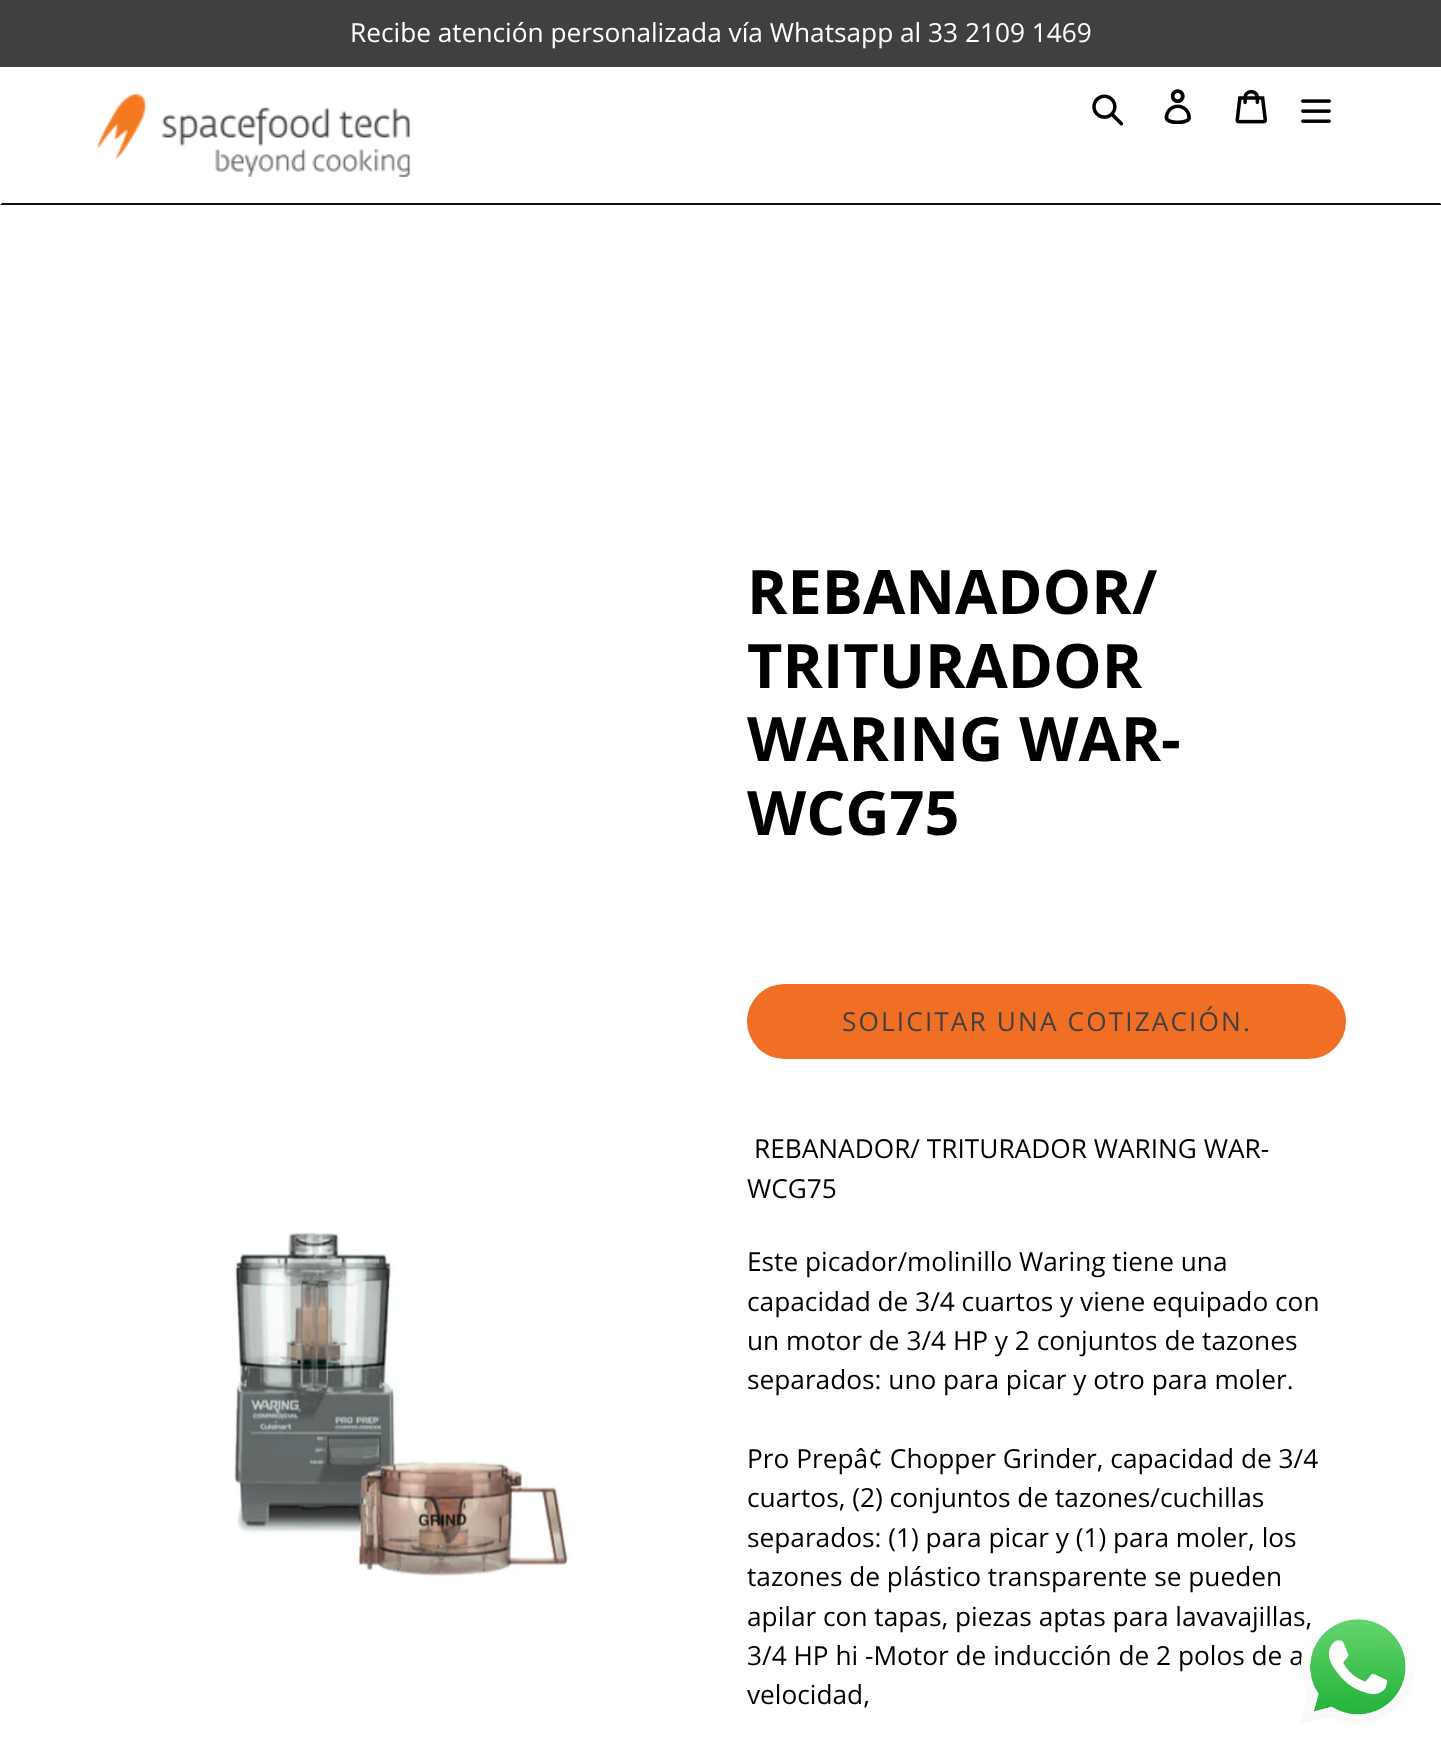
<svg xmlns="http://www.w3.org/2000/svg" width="1441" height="1754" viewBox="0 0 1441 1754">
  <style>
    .t1 { font: 26.25px Open Sans; fill: #fff; }
    .t2 { font: bold 61.25px Open Sans; fill: #000; }
    .t3 { font: bold 61.25px 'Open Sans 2'; fill: #000; }
    .t4 { font: 26.25px Open Sans; letter-spacing: 2.1px; fill: #414041; }
    .t5 { font: 26.25px Open Sans; fill: #000; }
  </style>
  <rect width="100%" height="100%" fill="#fff"/>
  <rect x="0" y="0" width="1441" height="67" fill="#414041"/>
  <text x="350" y="42" class="t1">Recibe atención personalizada vía Whatsapp al 33 2109 1469</text>
  <path d="M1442 205H0L2 203H1440Z" fill="#0f0e13"/>
  <image x="98" y="94" width="312" height="83" href="images/1.png"/>
  <image x="1092" y="94" width="32" height="32" href="images/2.png"/>
  <image x="1164" y="89" width="27" height="35" href="images/3.png"/>
  <image x="1235" y="89" width="32" height="35" href="images/4.png"/>
  <image x="1301" y="99" width="30" height="24" href="images/5.png"/>
  <image x="234" y="1232" width="337" height="347" href="images/6.png"/>
  <text x="747" y="614" class="t2">REBANADOR</text>
  <text x="1132" y="614" class="t3">/</text>
  <text x="747" y="688" class="t2">TRITURADOR</text>
  <text x="747" y="761" class="t2">WARING WAR</text>
  <text x="1161" y="761" class="t3">-</text>
  <text x="747" y="835" class="t2">WCG75</text>
  <rect x="747" y="984" width="599" height="75" rx="37.5" fill="#f16e25"/>
  <text x="842" y="1031" class="t4">SOLICITAR UNA COTIZACIÓN.</text>
  <text x="754" y="1158" class="t5">REBANADOR/ TRITURADOR WARING WAR-</text>
  <text x="747" y="1198" class="t5">WCG75</text>
  <text x="747" y="1271" class="t5">Este picador/molinillo Waring tiene una</text>
  <text x="747" y="1311" class="t5">capacidad de 3/4 cuartos y viene equipado con</text>
  <text x="747" y="1350" class="t5">un motor de 3/4 HP y 2 conjuntos de tazones</text>
  <text x="747" y="1389" class="t5">separados: uno para picar y otro para moler.</text>
  <text x="747" y="1468" class="t5">Pro Prepâ¢ Chopper Grinder, capacidad de 3/4</text>
  <text x="747" y="1507" class="t5">cuartos, (2) conjuntos de tazones/cuchillas</text>
  <text x="747" y="1547" class="t5">separados: (1) para picar y (1) para moler, los</text>
  <text x="747" y="1586" class="t5">tazones de plástico transparente se pueden</text>
  <text x="747" y="1626" class="t5">apilar con tapas, piezas aptas para lavavajillas,</text>
  <text x="747" y="1665" class="t5">3/4 HP hi -Motor de inducción de 2 polos de a</text>
  <text x="747" y="1704" class="t5">velocidad,</text>
  <image x="1300" y="1619" width="115" height="106" href="images/7.png"/>
</svg>
